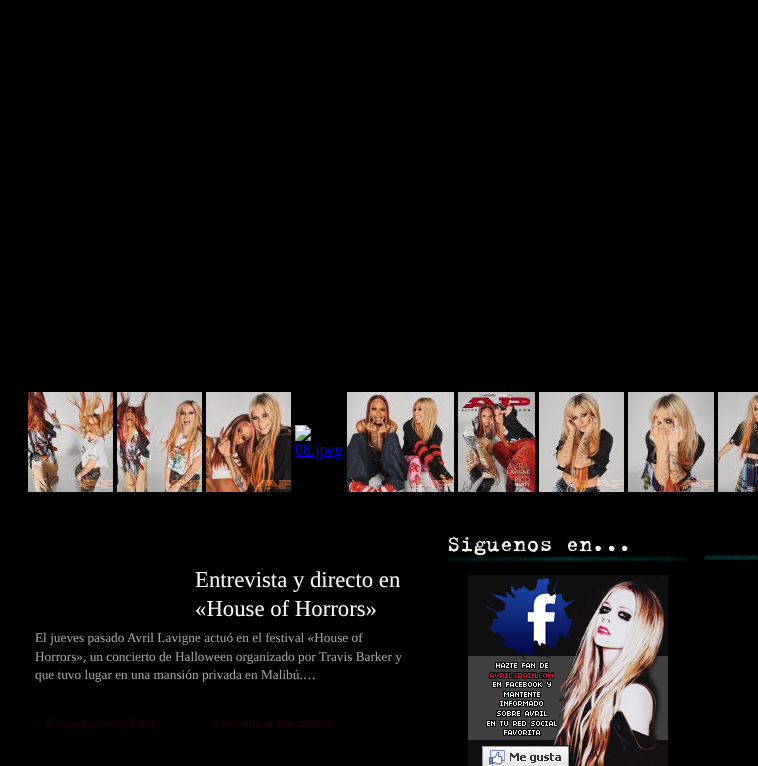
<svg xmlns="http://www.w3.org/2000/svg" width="758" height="766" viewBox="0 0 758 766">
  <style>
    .t1 { font: 22.75px Liberation Serif; fill: #fff; }
    .t2 { font: 13.3px Liberation Serif; fill: #a5a8aa; }
    .t3 { font: 12px Liberation Serif; fill: #300106; }
  </style>
  <rect width="100%" height="100%" fill="#000"/>
  <image x="28" y="392" width="730" height="100" href="images/1.png"/>
  <text x="195" y="587" class="t1">Entrevista y directo en</text>
  <text x="195" y="616" class="t1">«House of Horrors»</text>
  <text x="35" y="642" class="t2">El jueves pasado Avril Lavigne actuó en el festival «House of</text>
  <text x="35" y="661" class="t2">Horrors», un concierto de Halloween organizado por Travis Barker y</text>
  <text x="35" y="679" class="t2">que tuvo lugar en una mansión privada en Malibú.…</text>
  <text x="45" y="727" class="t3">¡Comentalo en el foro!</text>
  <text x="215" y="727" class="t3">Leer noticia al completo</text>
  <image x="447" y="535" width="240" height="27" href="images/2.png"/>
  <image x="468" y="575" width="200" height="191" href="images/3.png"/>
  <image x="704" y="555" width="54" height="6" href="images/4.png"/>
</svg>
